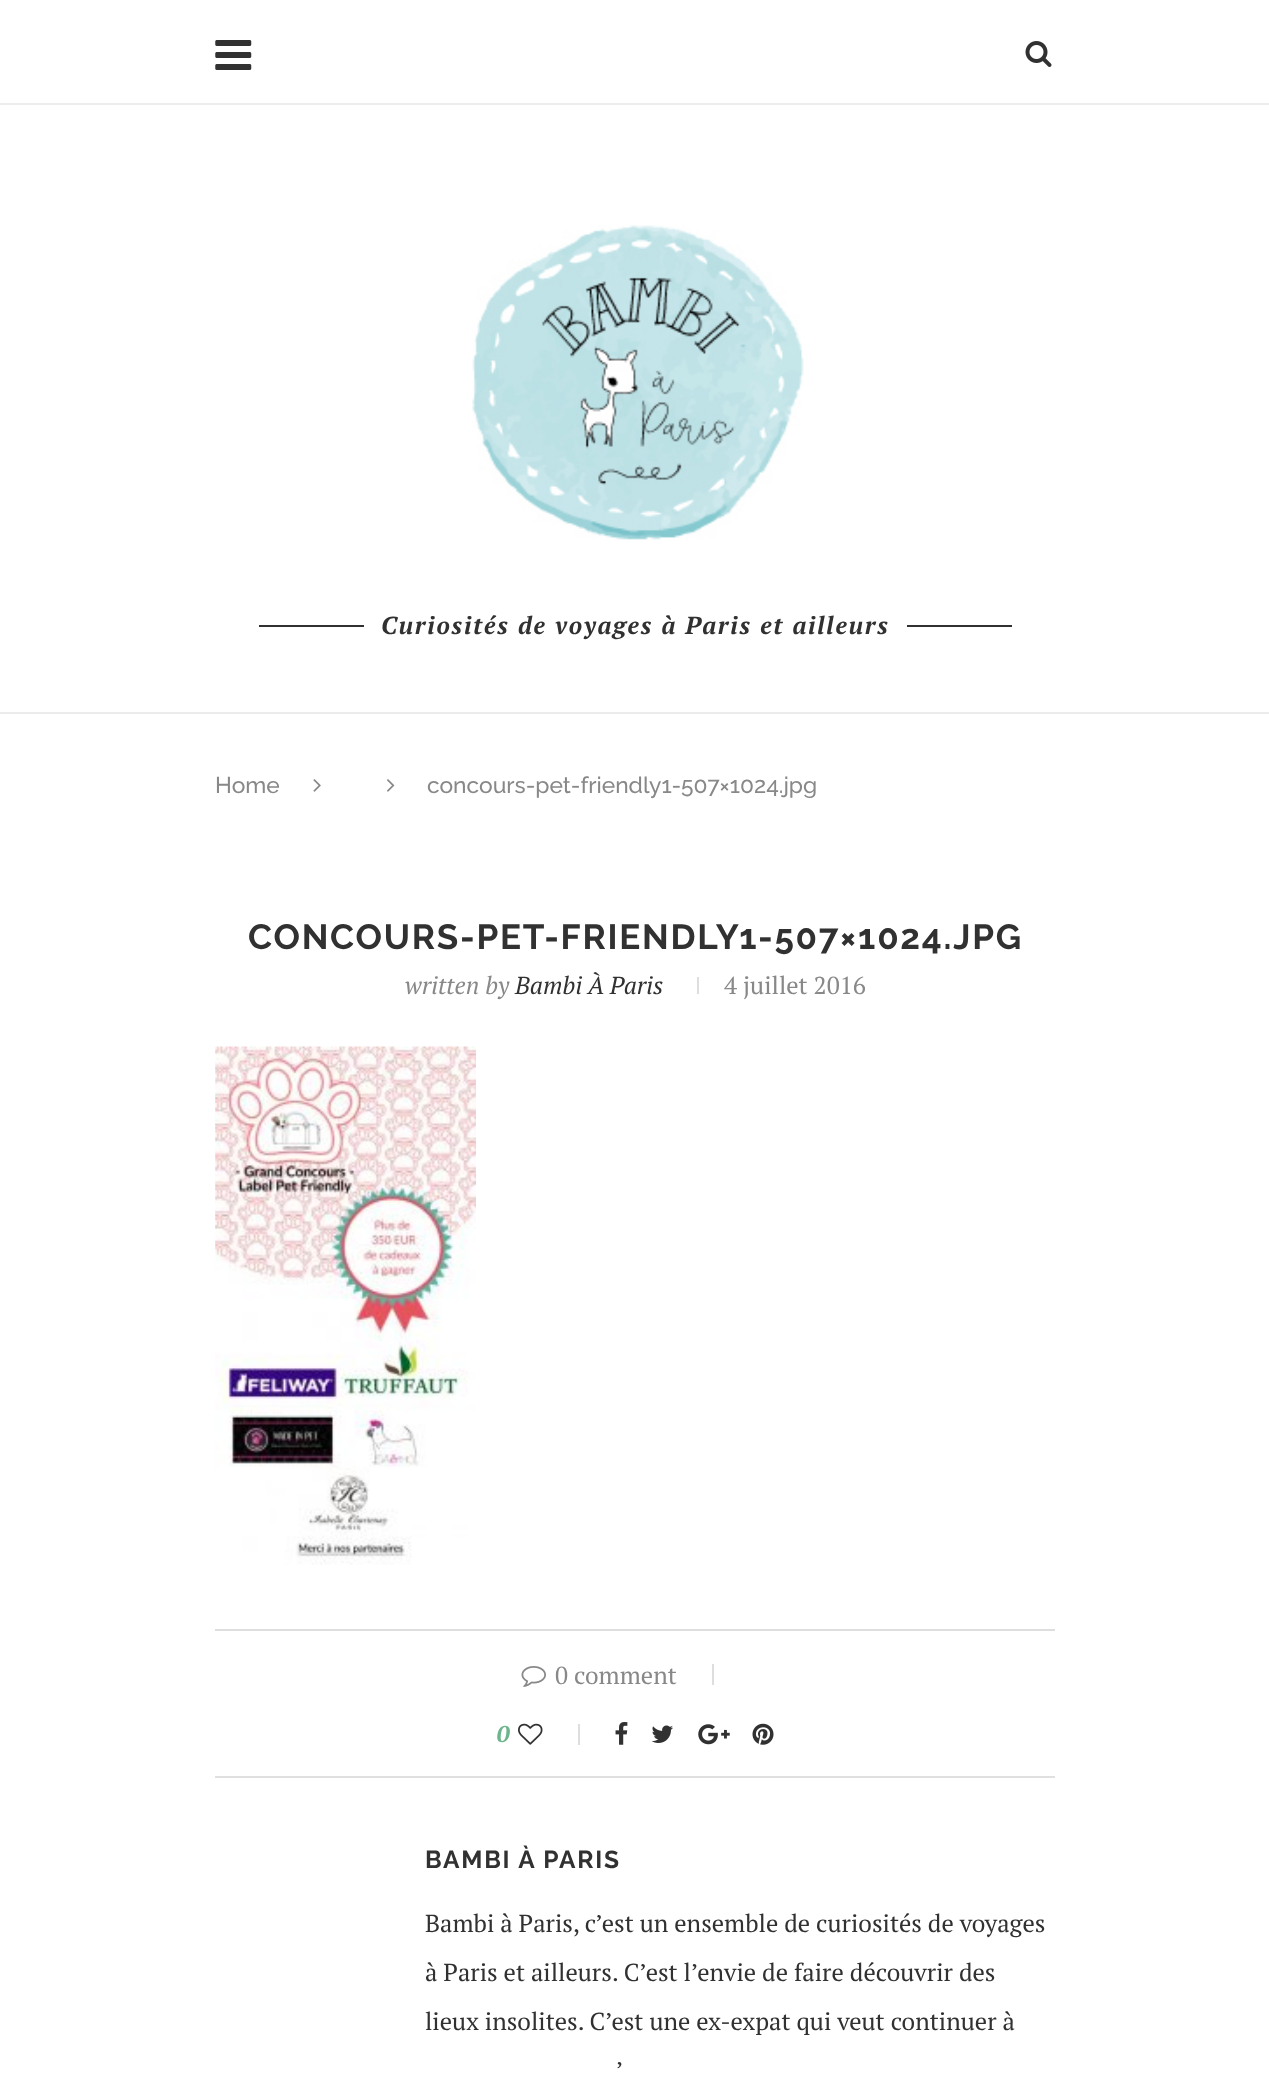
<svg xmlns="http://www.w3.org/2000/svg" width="1269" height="2074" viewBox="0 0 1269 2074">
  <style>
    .t1 { font: italic bold 24.5px PT Serif; letter-spacing: 1.75px; fill: #313131; }
    .t2 { font: 500 22.75px Raleway; fill: #888; }
    .t3 { font: bold 35px Raleway; letter-spacing: 1.75px; fill: #313131; }
    .t4 { font: italic 24.5px PT Serif; fill: #888; }
    .t5 { font: italic 24.5px PT Serif; fill: #313131; }
    .t6 { font: 24.5px PT Serif; fill: #888; }
    .t7 { font: italic bold 22.75px PT Serif; fill: #6eb48c; }
    .t8 { font: bold 24.5px Raleway; letter-spacing: 1.75px; fill: #313131; }
    .t9 { font: 24.5px PT Serif; fill: #313131; }
  </style>
  <rect width="100%" height="100%" fill="#fff"/>
  <rect x="0" y="103" width="1269" height="2" fill="#ececec"/>
  <image x="215" y="40" width="37" height="30" href="images/1.png"/>
  <image x="1025" y="41" width="27" height="26" href="images/2.png"/>
  <rect x="0" y="712" width="1269" height="2" fill="#ececec"/>
  <image x="472" y="225" width="332" height="315" href="images/3.png"/>
  <rect x="259" y="625" width="105" height="2" fill="#313131"/>
  <text x="381" y="634" class="t1">Curiosités de voyages à Paris et ailleurs</text>
  <rect x="907" y="625" width="105" height="2" fill="#313131"/>
  <text x="215" y="793" class="t2">Home</text>
  <image x="313" y="779" width="8" height="13" href="images/4.png"/>
  <image x="387" y="779" width="8" height="13" href="images/5.png"/>
  <text x="427" y="793" class="t2">concours-pet-friendly1-507×1024.jpg</text>
  <text x="248" y="949" class="t3">CONCOURS-PET-FRIENDLY1-507×1024.JPG</text>
  <text x="405" y="994" class="t4">written by</text>
  <text x="515" y="994" class="t5">Bambi À Paris</text>
  <rect x="697" y="977" width="2" height="17" fill="#dedede"/>
  <text x="724" y="994" class="t6">4 juillet 2016</text>
  <image x="215" y="1046" width="261" height="519" href="images/6.png"/>
  <rect x="215" y="1629" width="840" height="2" fill="#dedede"/>
  <image x="521" y="1666" width="25" height="21" href="images/7.png"/>
  <text x="555" y="1684" class="t6">0 comment</text>
  <rect x="712" y="1664" width="2" height="21" fill="#dedede"/>
  <text x="497" y="1742" class="t7">0</text>
  <image x="518" y="1723" width="25" height="22" href="images/8.png"/>
  <rect x="578" y="1724" width="2" height="21" fill="#dedede"/>
  <image x="615" y="1722" width="13" height="23" href="images/9.png"/>
  <image x="651" y="1725" width="22" height="18" href="images/10.png"/>
  <image x="698" y="1724" width="32" height="21" href="images/11.png"/>
  <image x="752" y="1723" width="22" height="22" href="images/12.png"/>
  <rect x="215" y="1776" width="840" height="2" fill="#e0e0e0"/>
  <text x="425" y="1868" class="t8">BAMBI À PARIS</text>
  <text x="425" y="1932" class="t9">Bambi à Paris, c’est un ensemble de curiosités de voyages</text>
  <text x="425" y="1981" class="t9">à Paris et ailleurs. C’est l’envie de faire découvrir des</text>
  <text x="425" y="2030" class="t9">lieux insolites. C’est une ex-expat qui veut continuer à</text>
  <text x="616" y="2079" class="t9">’</text>
</svg>
